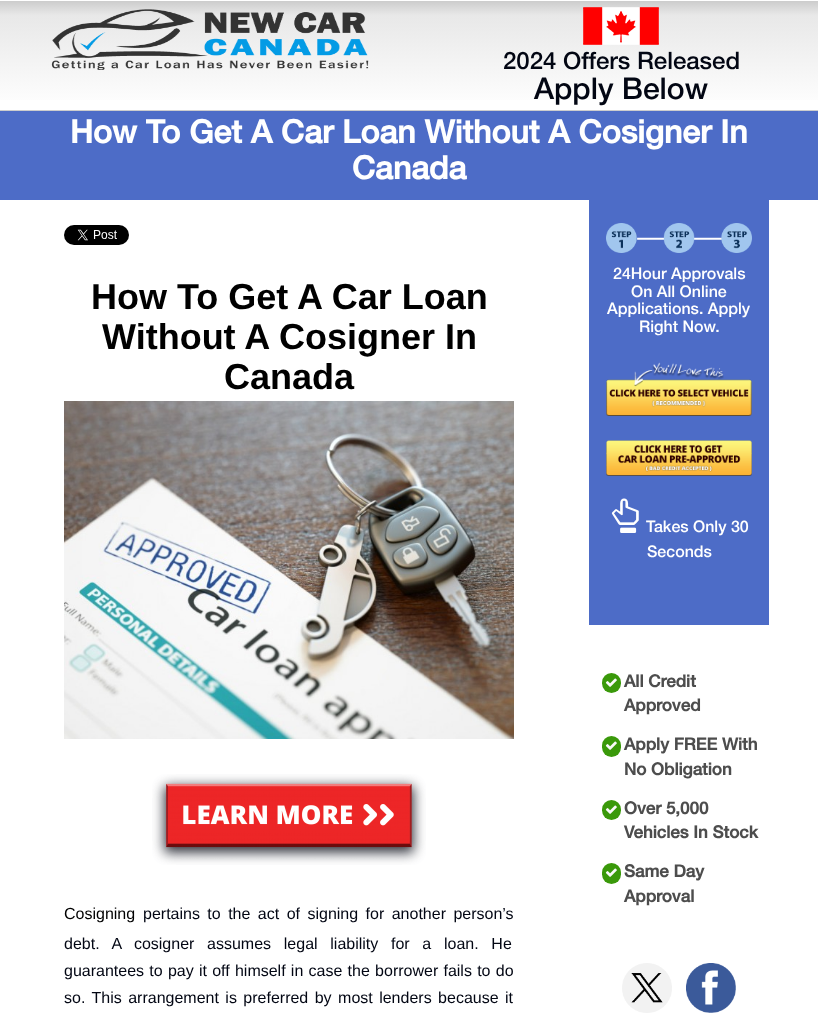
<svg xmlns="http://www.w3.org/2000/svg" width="818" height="1015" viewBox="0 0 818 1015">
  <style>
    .t1 { font: 500 24px Helvetica Neue; fill: #020613; }
    .t2 { font: 500 30px Helvetica Neue; fill: #020613; }
    .t3 { font: bold 32px Helvetica Neue; fill: #fff; }
    .t4 { font: bold 36px Liberation Sans; fill: #000; }
    .t5 { font: 16px Liberation Sans; fill: #000; }
    .t6 { font: 16px Liberation Sans; fill: #020613; }
    .t7 { font: 500 16px Helvetica Neue; fill: #fff; }
    .t8 { font: bold 17px Helvetica Neue; fill: #4d4d4d; }
  </style>
  <defs>
    <linearGradient id="g1" gradientUnits="userSpaceOnUse" x1="409" y1="1" x2="409" y2="110"><stop offset="0" stop-color="#ccc"/><stop offset="0.13" stop-color="#e8e8e8"/><stop offset="1" stop-color="#fff"/></linearGradient>
    <linearGradient id="g2" gradientUnits="userSpaceOnUse" x1="409" y1="110" x2="409" y2="219"><stop offset="0" stop-color="#ccc"/><stop offset="0.13" stop-color="#e8e8e8"/><stop offset="1" stop-color="#fff"/></linearGradient>
  </defs>
  <rect width="100%" height="100%" fill="#fff"/>
  <rect x="0" y="1" width="818" height="99" fill="url(#g1)"/>
  <rect x="0" y="110" width="818" height="1" fill="url(#g2)"/>
  <image x="51" y="9" width="318" height="61" href="images/1.png"/>
  <image x="583" y="7" width="76" height="38" href="images/2.png"/>
  <text x="503" y="69" class="t1">2024 Offers Released</text>
  <text x="534" y="99" class="t2">Apply Below</text>
  <rect x="0" y="111" width="818" height="89" fill="#4d6cc7"/>
  <text x="70" y="143" class="t3">How To Get A Car Loan Without A Cosigner In</text>
  <text x="352" y="179" class="t3">Canada</text>
  <image x="64" y="225" width="65" height="20" href="images/3.png"/>
  <text x="91" y="309" class="t4">How To Get A Car Loan</text>
  <text x="102" y="349" class="t4">Without A Cosigner In</text>
  <text x="224" y="389" class="t4">Canada</text>
  <image x="64" y="401" width="450" height="338" href="images/4.png"/>
  <image x="152" y="774" width="274" height="91" href="images/5.png"/>
  <text x="64" y="919" class="t5">Cosigning</text>
  <text x="143" y="919" word-spacing="3" class="t6">pertains to the act of signing for another person’s</text>
  <text x="64" y="949" word-spacing="8.25" class="t6">debt. A cosigner assumes legal liability for a loan. He</text>
  <text x="64" y="976" word-spacing="0.8" class="t6">guarantees to pay it off himself in case the borrower fails to do</text>
  <text x="64" y="1003" word-spacing="2" class="t6">so. This arrangement is preferred by most lenders because it</text>
  <rect x="589" y="200" width="180" height="425" fill="#4d6cc7"/>
  <image x="606" y="223" width="146" height="30" href="images/6.png"/>
  <text x="613" y="279" class="t7">24Hour Approvals</text>
  <text x="631" y="297" class="t7">On All Online</text>
  <text x="607" y="314" class="t7">Applications. Apply</text>
  <text x="639" y="332" class="t7">Right Now.</text>
  <image x="606" y="362" width="146" height="54" href="images/7.png"/>
  <image x="606" y="440" width="146" height="36" href="images/8.png"/>
  <image x="611" y="498" width="28" height="35" href="images/9.png"/>
  <text x="646" y="532" class="t7">Takes Only 30</text>
  <text x="647" y="557" class="t7">Seconds</text>
  <rect x="602" y="673" width="19" height="20" rx="9.5" fill="#3a990a"/>
  <image x="605" y="678" width="12" height="9" href="images/10.png"/>
  <text x="624" y="687" class="t8">All Credit</text>
  <text x="624" y="711" class="t8">Approved</text>
  <rect x="602" y="736" width="19" height="21" rx="9.5" fill="#3a990a"/>
  <image x="605" y="741" width="12" height="9" href="images/10.png"/>
  <text x="624" y="750" class="t8">Apply FREE With</text>
  <text x="624" y="775" class="t8">No Obligation</text>
  <rect x="602" y="800" width="19" height="20" rx="9.5" fill="#3a990a"/>
  <image x="605" y="805" width="12" height="9" href="images/10.png"/>
  <text x="624" y="814" class="t8">Over 5,000</text>
  <text x="624" y="838" class="t8">Vehicles In Stock</text>
  <rect x="602" y="863" width="19" height="21" rx="9.5" fill="#3a990a"/>
  <image x="605" y="868" width="12" height="9" href="images/10.png"/>
  <text x="624" y="877" class="t8">Same Day</text>
  <text x="624" y="902" class="t8">Approval</text>
  <image x="622" y="963" width="50" height="50" href="images/11.png"/>
  <image x="686" y="963" width="50" height="50" href="images/12.png"/>
</svg>
